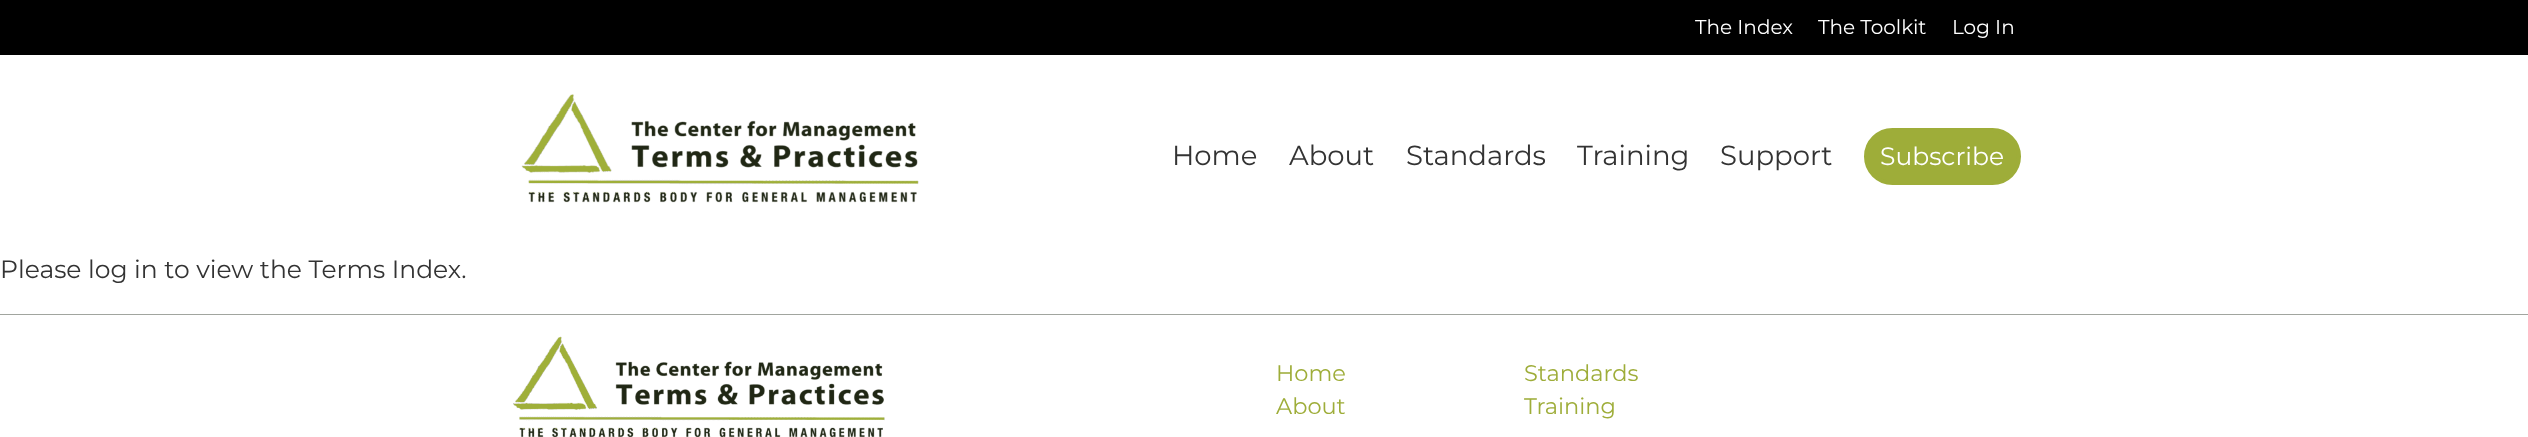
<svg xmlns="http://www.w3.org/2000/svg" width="2528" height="437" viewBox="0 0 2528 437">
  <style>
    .t1 { font: 20px Montserrat; fill: #fff; }
    .t2 { font: 27.5px Montserrat; fill: #333; }
    .t3 { font: 25px Montserrat; fill: #fff; }
    .t4 { font: 25px Montserrat; fill: #333; }
    .t5 { font: 22.5px Montserrat; fill: #9ead39; }
  </style>
  <rect width="100%" height="100%" fill="#fff"/>
  <rect x="0" y="0" width="2528" height="55" fill="#000"/>
  <text x="1695" y="34" class="t1">The Index</text>
  <text x="1818" y="34" class="t1">The Toolkit</text>
  <text x="1952" y="34" class="t1">Log In</text>
  <image x="521" y="94" width="398" height="109" href="images/1.png"/>
  <text x="1172" y="165" class="t2">Home</text>
  <text x="1289" y="165" class="t2">About</text>
  <text x="1406" y="165" class="t2">Standards</text>
  <text x="1577" y="165" class="t2">Training</text>
  <text x="1720" y="165" class="t2">Support</text>
  <rect x="1866" y="130" width="153" height="53" rx="26.5" fill="#9ead39" stroke="#9ead39" stroke-width="4"/>
  <text x="1880" y="165" class="t3">Subscribe</text>
  <text x="0" y="278" class="t4">Please log in to view the Terms Index.</text>
  <rect x="0" y="314" width="2528" height="1" fill="#a1a59f"/>
  <image x="513" y="336" width="372" height="101" href="images/2.png"/>
  <text x="1276" y="381" class="t5">Home</text>
  <text x="1276" y="414" class="t5">About</text>
  <text x="1524" y="381" class="t5">Standards</text>
  <text x="1524" y="414" class="t5">Training</text>
</svg>
